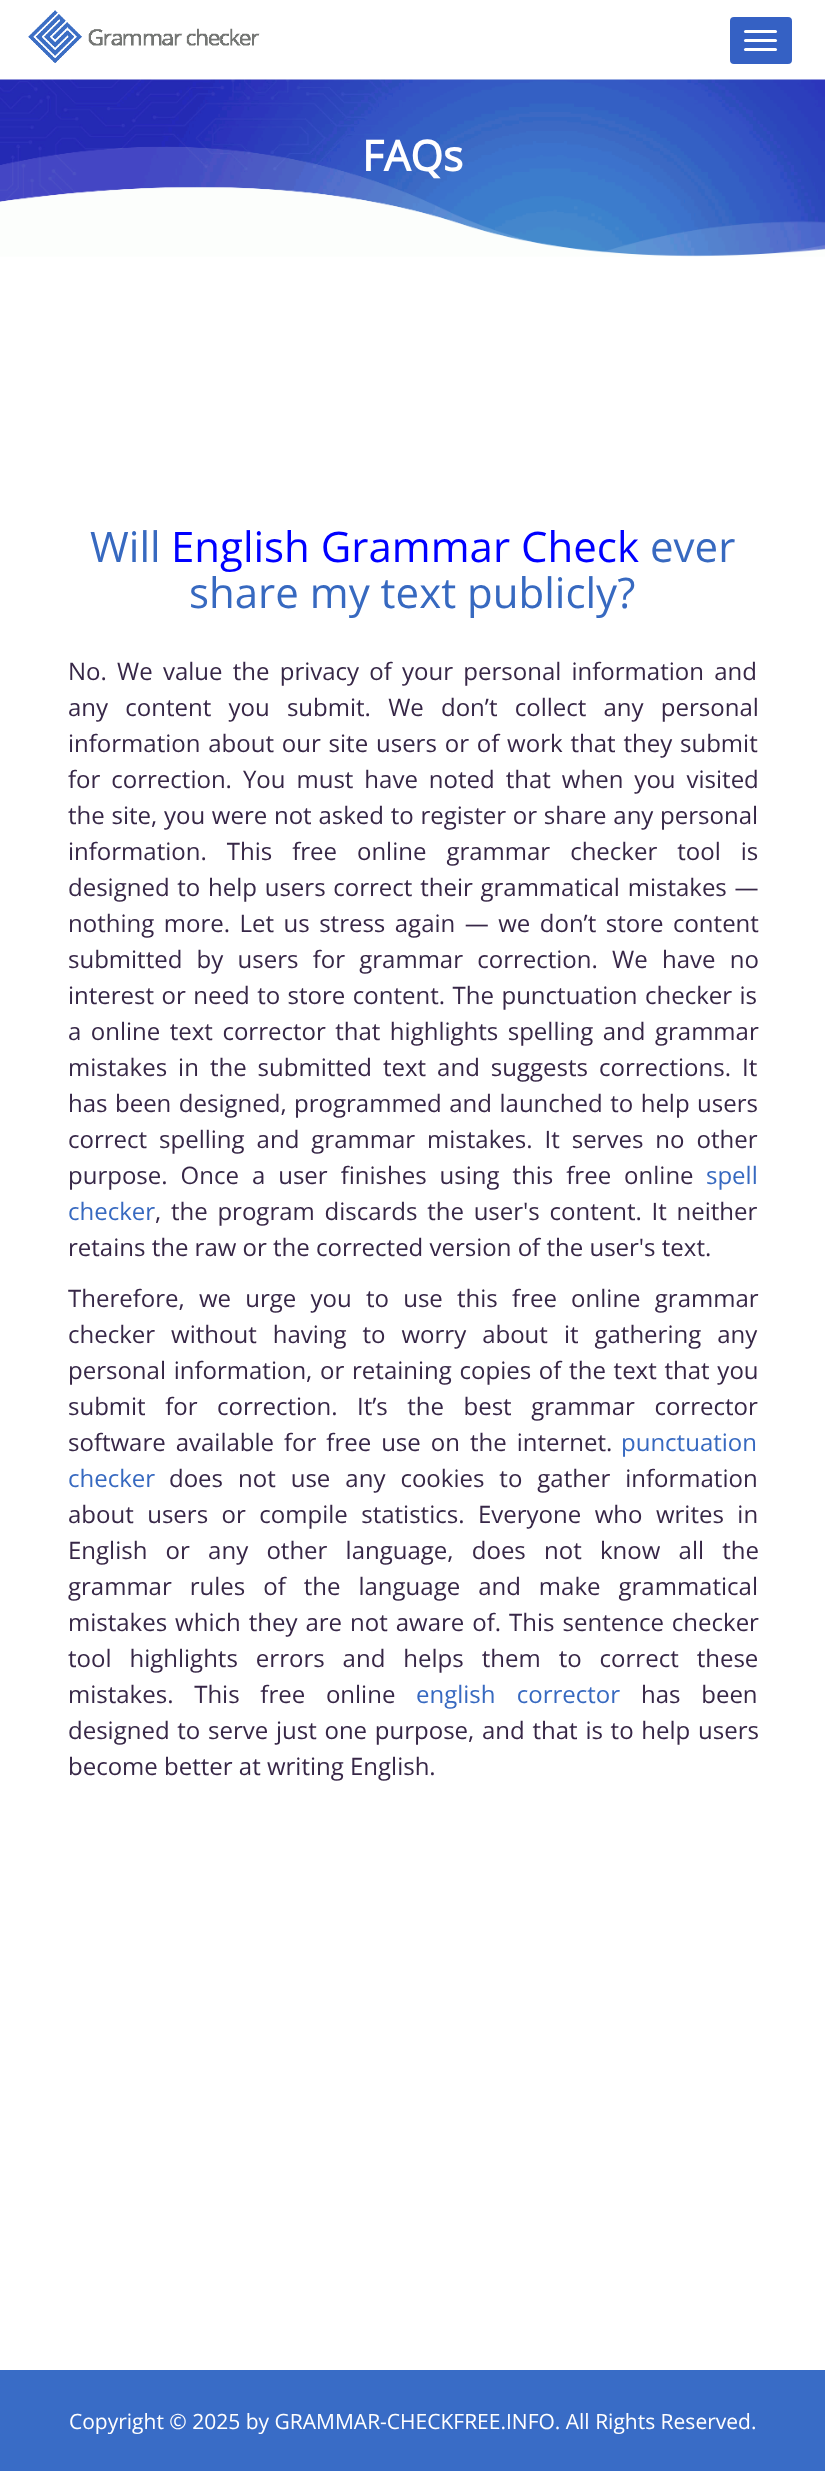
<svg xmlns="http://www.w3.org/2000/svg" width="825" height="2471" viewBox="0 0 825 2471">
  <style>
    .t1 { font: bold 42px Open Sans; fill: #fff; }
    .t2 { font: 42px Open Sans; fill: #3769c0; }
    .t3 { font: 42px Open Sans; fill: #00f; }
    .t4 { font: 24px Open Sans; fill: #372747; }
    .t5 { font: 24px Open Sans; fill: #3769c0; }
    .t6 { font: 21px Open Sans; fill: #fff; }
  </style>
  <rect width="100%" height="100%" fill="#fff"/>
  <image x="28" y="10" width="232" height="53" href="images/1.png"/>
  <rect x="729" y="16" width="64" height="49" rx="5" fill="#3561c4" stroke="#fff" stroke-width="2"/>
  <rect x="744" y="30" width="33" height="3" rx="1.5" fill="#fff"/>
  <rect x="744" y="39" width="33" height="3" rx="1.5" fill="#fff"/>
  <rect x="744" y="48" width="33" height="3" rx="1.5" fill="#fff"/>
  <image x="0" y="79" width="825" height="178" href="images/2.png"/>
  <text x="362" y="171" class="t1">FAQs</text>
  <text x="90" y="562" class="t2">Will</text>
  <text x="171" y="562" class="t3">English Grammar Check</text>
  <text x="650" y="562" class="t2">ever</text>
  <text x="189" y="608" class="t2">share my text publicly?</text>
  <text x="68" y="680" word-spacing="4" class="t4">No. We value the privacy of your personal information and</text>
  <text x="68" y="716" word-spacing="11" class="t4">any content you submit. We don’t collect any personal</text>
  <text x="68" y="752" word-spacing="1.6" class="t4">information about our site users or of work that they submit</text>
  <text x="68" y="788" word-spacing="4.75" class="t4">for correction. You must have noted that when you visited</text>
  <text x="68" y="824" word-spacing="0.5" class="t4">the site, you were not asked to register or share any personal</text>
  <text x="68" y="860" word-spacing="13.75" class="t4">information. This free online grammar checker tool is</text>
  <text x="68" y="896" word-spacing="1.5" class="t4">designed to help users correct their grammatical mistakes —</text>
  <text x="68" y="932" word-spacing="3.25" class="t4">nothing more. Let us stress again — we don’t store content</text>
  <text x="68" y="968" word-spacing="8" class="t4">submitted by users for grammar correction. We have no</text>
  <text x="68" y="1004" word-spacing="1.25" class="t4">interest or need to store content. The punctuation checker is</text>
  <text x="68" y="1040" word-spacing="3.25" class="t4">a online text corrector that highlights spelling and grammar</text>
  <text x="68" y="1076" word-spacing="4.75" class="t4">mistakes in the submitted text and suggests corrections. It</text>
  <text x="68" y="1112" word-spacing="1.25" class="t4">has been designed, programmed and launched to help users</text>
  <text x="68" y="1148" word-spacing="5.75" class="t4">correct spelling and grammar mistakes. It serves no other</text>
  <text x="68" y="1184" word-spacing="6.75" class="t4">purpose. Once a user finishes using this free online</text>
  <text x="706" y="1184" class="t5">spell</text>
  <text x="68" y="1220" class="t5">checker</text>
  <text x="155" y="1220" word-spacing="3.5" class="t4">, the program discards the user's content. It neither</text>
  <text x="68" y="1256" class="t4">retains the raw or the corrected version of the user's text.</text>
  <text x="68" y="1307" word-spacing="8" class="t4">Therefore, we urge you to use this free online grammar</text>
  <text x="68" y="1343" word-spacing="9.75" class="t4">checker without having to worry about it gathering any</text>
  <text x="68" y="1379" word-spacing="1.5" class="t4">personal information, or retaining copies of the text that you</text>
  <text x="68" y="1415" word-spacing="13.25" class="t4">submit for correction. It’s the best grammar corrector</text>
  <text x="68" y="1451" word-spacing="3.75" class="t4">software available for free use on the internet.</text>
  <text x="621" y="1451" class="t5">punctuation</text>
  <text x="68" y="1487" class="t5">checker</text>
  <text x="169" y="1487" word-spacing="8.75" class="t4">does not use any cookies to gather information</text>
  <text x="68" y="1523" word-spacing="7.25" class="t4">about users or compile statistics. Everyone who writes in</text>
  <text x="68" y="1559" word-spacing="12" class="t4">English or any other language, does not know all the</text>
  <text x="68" y="1595" word-spacing="11.75" class="t4">grammar rules of the language and make grammatical</text>
  <text x="68" y="1631" word-spacing="1.75" class="t4">mistakes which they are not aware of. This sentence checker</text>
  <text x="68" y="1667" word-spacing="11.75" class="t4">tool highlights errors and helps them to correct these</text>
  <text x="68" y="1703" word-spacing="14.5" class="t4">mistakes. This free online</text>
  <text x="416" y="1703" word-spacing="15" class="t5">english corrector</text>
  <text x="641" y="1703" word-spacing="14.5" class="t4">has been</text>
  <text x="68" y="1739" word-spacing="1.5" class="t4">designed to serve just one purpose, and that is to help users</text>
  <text x="68" y="1775" class="t4">become better at writing English.</text>
  <rect x="0" y="2370" width="825" height="101" fill="#396cc6"/>
  <text x="69" y="2429" class="t6">Copyright © 2025 by GRAMMAR-CHECKFREE.INFO. All Rights Reserved.</text>
</svg>
